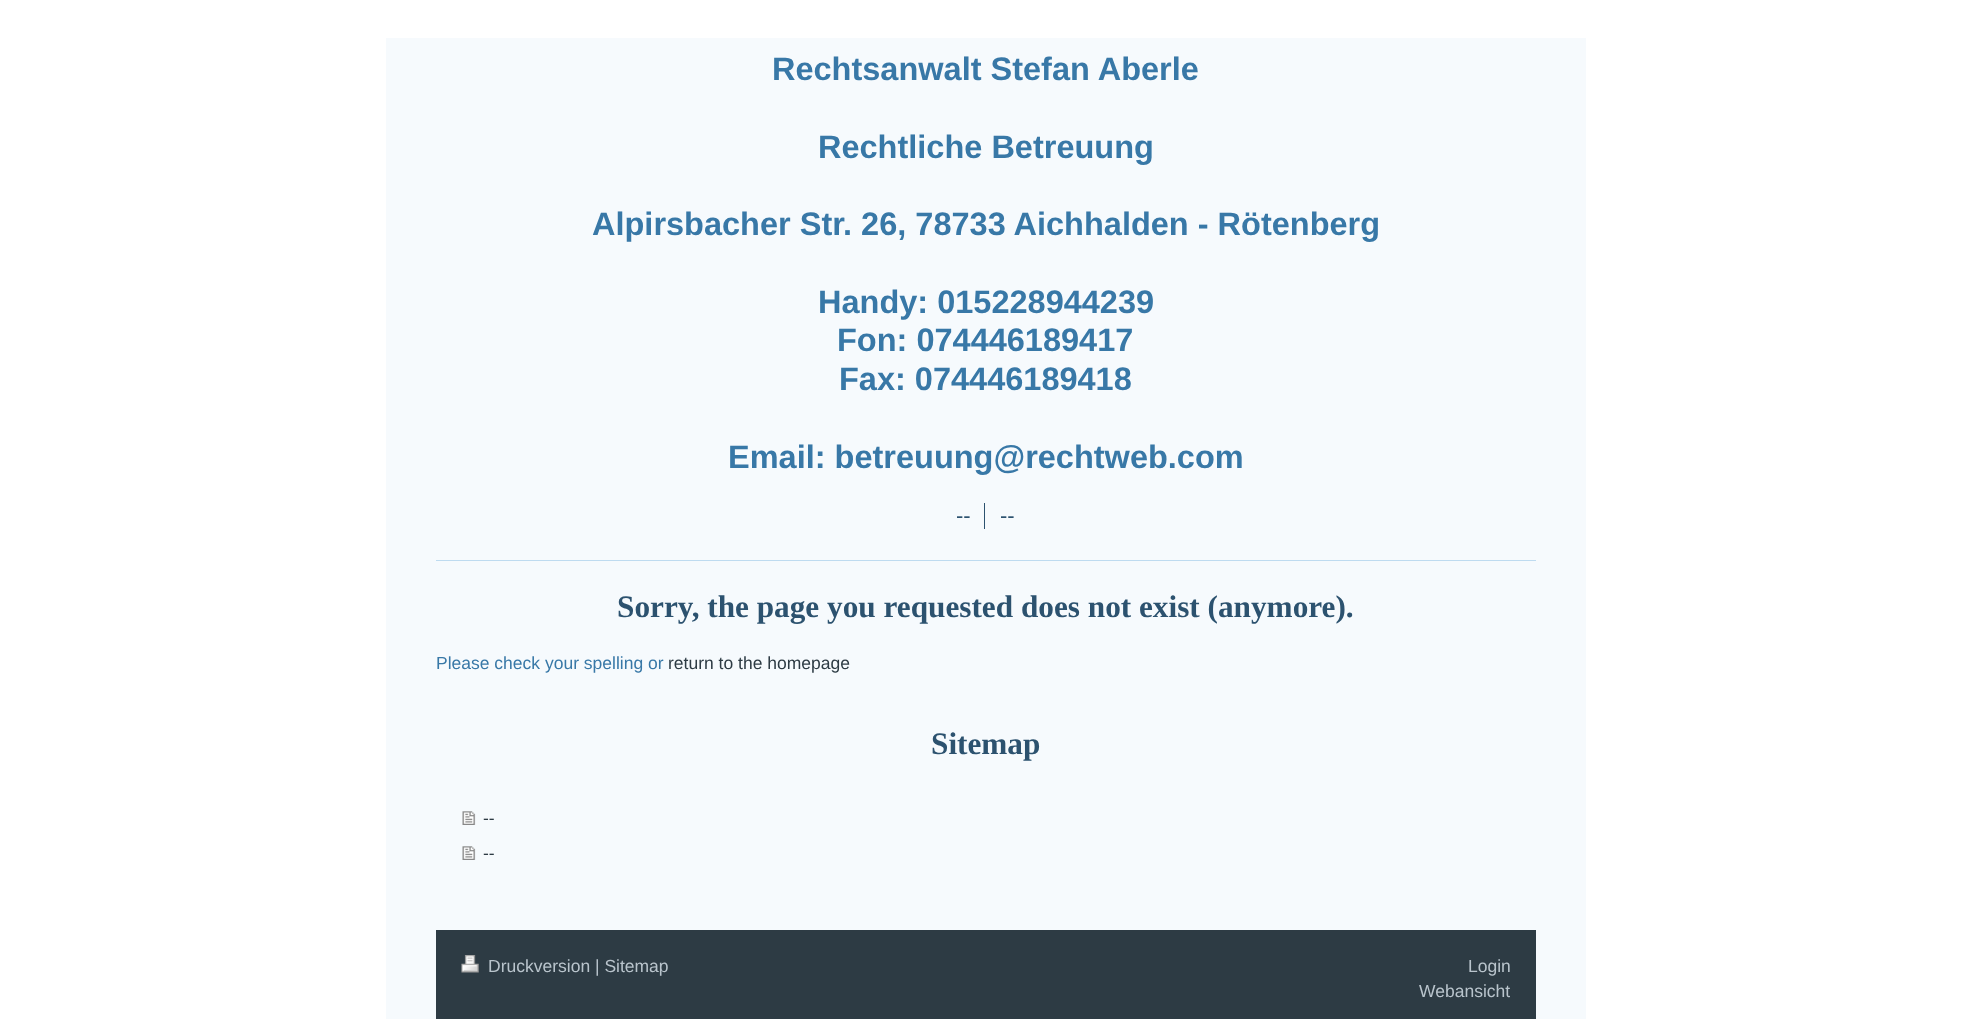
<svg xmlns="http://www.w3.org/2000/svg" width="1971" height="1019" viewBox="0 0 1971 1019">
  <style>
    .t1 { font: bold 32.5px Liberation Sans; fill: #3878a7; }
    .t2 { font: 22px Liberation Sans; fill: #2c526f; }
    .t3 { font: bold 31.25px Liberation Serif; fill: #2c526f; }
    .t4 { font: 17.5px Liberation Sans; fill: #3878a7; }
    .t5 { font: 17.5px Liberation Sans; fill: #2d3b44; }
    .t6 { font: 17.5px Liberation Sans; fill: #b9c4cc; }
  </style>
  <rect width="100%" height="100%" fill="#fff"/>
  <rect x="386" y="38" width="1200" height="981" fill="#f6fafd"/>
  <text x="772" y="80" class="t1">Rechtsanwalt Stefan Aberle</text>
  <text x="818" y="158" class="t1">Rechtliche Betreuung</text>
  <text x="592" y="235" class="t1">Alpirsbacher Str. 26, 78733 Aichhalden - Rötenberg</text>
  <text x="818" y="313" class="t1">Handy: 015228944239</text>
  <text x="837" y="351" class="t1">Fon: 074446189417</text>
  <text x="839" y="390" class="t1">Fax: 074446189418</text>
  <text x="728" y="468" class="t1">Email: betreuung@rechtweb.com</text>
  <rect x="436" y="560" width="1100" height="1" fill="#bedbf0"/>
  <rect x="984" y="503" width="1" height="26" fill="#2c526f"/>
  <text x="956" y="523" class="t2">--</text>
  <text x="1000" y="523" class="t2">--</text>
  <text x="617" y="617" class="t3">Sorry, the page you requested does not exist (anymore).</text>
  <text x="436" y="669" class="t4">Please check your spelling or</text>
  <text x="668" y="669" class="t5">return to the homepage</text>
  <text x="931" y="754" class="t3">Sitemap</text>
  <image x="462" y="811" width="14" height="14" href="images/1.png"/>
  <text x="483" y="824" class="t5">--</text>
  <image x="462" y="846" width="14" height="14" href="images/1.png"/>
  <text x="483" y="859" class="t5">--</text>
  <rect x="436" y="930" width="1100" height="89" fill="#2d3b44"/>
  <image x="461" y="955" width="18" height="18" href="images/2.png"/>
  <text x="488" y="972" class="t6">Druckversion | Sitemap</text>
  <text x="1468" y="972" class="t6">Login</text>
  <text x="1419" y="997" class="t6">Webansicht</text>
</svg>
